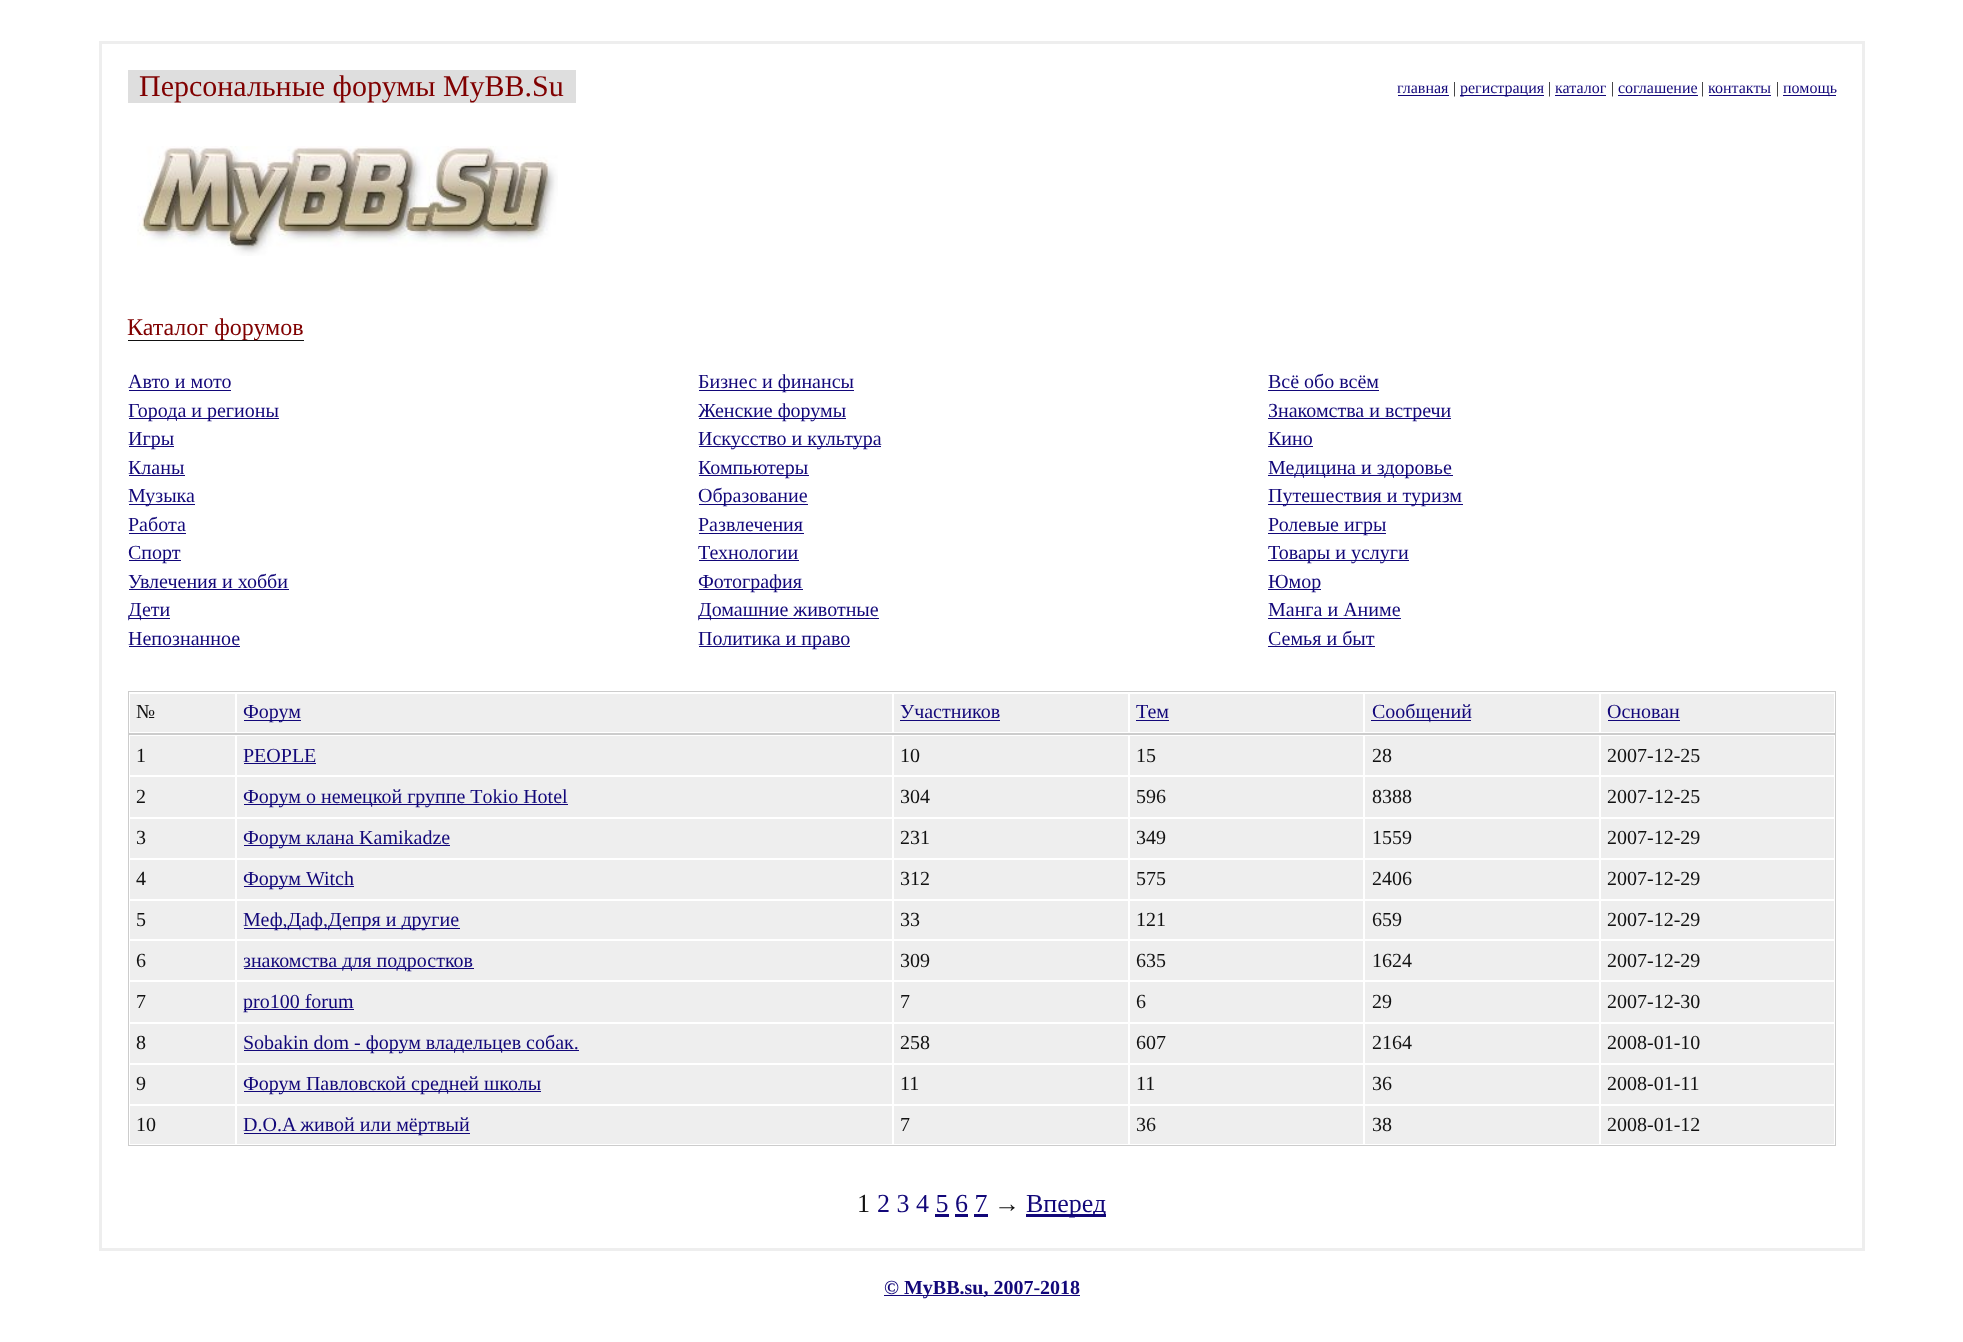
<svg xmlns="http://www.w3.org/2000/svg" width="1963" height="1342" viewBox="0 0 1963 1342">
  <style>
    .t1 { font: 30px Liberation Serif; fill: #800000; }
    .t2 { font: 16px Liberation Serif; fill: #120779; }
    .t3 { font: 16px Liberation Serif; fill: #111; }
    .t4 { font: 24px Liberation Serif; fill: #800000; }
    .t5 { font: 20px Liberation Serif; fill: #120779; }
    .t6 { font: 20px Liberation Serif; fill: #111; }
    .t7 { font: 26px Liberation Serif; fill: #111; }
    .t8 { font: 26px Liberation Serif; fill: #120779; }
    .t9 { font: bold 20px Liberation Serif; fill: #120779; }
  </style>
  <rect width="100%" height="100%" fill="#fff"/>
  <rect x="100.5" y="42.5" width="1763" height="1207" fill="none" stroke="#eee" stroke-width="3"/>
  <rect x="128" y="70" width="448" height="33" fill="#dedede"/>
  <text x="139" y="96" class="t1">Персональные форумы MyBB.Su</text>
  <text x="1397" y="93" class="t2">главная</text>
  <rect x="1398" y="95" width="51" height="1" fill="#120779"/>
  <text x="1453" y="93" class="t3">|</text>
  <rect x="1460" y="95" width="84" height="1" fill="#120779"/>
  <text x="1460" y="93" class="t2">регистрация</text>
  <text x="1548" y="93" class="t3">|</text>
  <text x="1555" y="93" class="t2">каталог</text>
  <rect x="1555" y="95" width="51" height="1" fill="#120779"/>
  <text x="1611" y="93" class="t3">|</text>
  <text x="1618" y="93" class="t2">соглашение</text>
  <rect x="1618" y="95" width="80" height="1" fill="#120779"/>
  <text x="1701" y="93" class="t3">|</text>
  <text x="1708" y="93" class="t2">контакты</text>
  <rect x="1709" y="95" width="62" height="1" fill="#120779"/>
  <text x="1776" y="93" class="t3">|</text>
  <rect x="1783" y="95" width="53" height="1" fill="#120779"/>
  <text x="1783" y="93" class="t2">помощь</text>
  <image x="137" y="146" width="421" height="110" href="images/1.png"/>
  <rect x="128" y="340" width="176" height="1" fill="#111"/>
  <text x="127" y="335" class="t4">Каталог форумов</text>
  <text x="128" y="388" class="t5">Авто и мото</text>
  <rect x="129" y="390" width="102" height="1" fill="#120779"/>
  <rect x="699" y="390" width="155" height="1" fill="#120779"/>
  <text x="698" y="388" class="t5">Бизнес и финансы</text>
  <text x="1268" y="388" class="t5">Всё обо всём</text>
  <rect x="1268" y="390" width="111" height="1" fill="#120779"/>
  <rect x="129" y="418" width="150" height="1" fill="#120779"/>
  <text x="128" y="417" class="t5">Города и регионы</text>
  <rect x="699" y="418" width="147" height="1" fill="#120779"/>
  <text x="698" y="417" class="t5">Женские форумы</text>
  <rect x="1268" y="418" width="183" height="1" fill="#120779"/>
  <text x="1268" y="417" class="t5">Знакомства и встречи</text>
  <rect x="129" y="446" width="45" height="1" fill="#120779"/>
  <text x="128" y="445" class="t5">Игры</text>
  <rect x="699" y="446" width="182" height="1" fill="#120779"/>
  <text x="698" y="445" class="t5">Искусство и культура</text>
  <text x="1268" y="445" class="t5">Кино</text>
  <rect x="1268" y="446" width="45" height="1" fill="#120779"/>
  <text x="128" y="474" class="t5">Кланы</text>
  <rect x="129" y="475" width="56" height="1" fill="#120779"/>
  <rect x="699" y="475" width="110" height="1" fill="#120779"/>
  <text x="698" y="474" class="t5">Компьютеры</text>
  <rect x="1268" y="475" width="185" height="1" fill="#120779"/>
  <text x="1268" y="474" class="t5">Медицина и здоровье</text>
  <rect x="129" y="504" width="66" height="1" fill="#120779"/>
  <text x="128" y="502" class="t5">Музыка</text>
  <rect x="699" y="504" width="109" height="1" fill="#120779"/>
  <text x="698" y="502" class="t5">Образование</text>
  <rect x="1268" y="504" width="195" height="1" fill="#120779"/>
  <text x="1268" y="502" class="t5">Путешествия и туризм</text>
  <text x="128" y="531" class="t5">Работа</text>
  <rect x="129" y="533" width="57" height="1" fill="#120779"/>
  <text x="698" y="531" class="t5">Развлечения</text>
  <rect x="699" y="533" width="105" height="1" fill="#120779"/>
  <rect x="1268" y="533" width="118" height="1" fill="#120779"/>
  <text x="1268" y="531" class="t5">Ролевые игры</text>
  <rect x="129" y="560" width="52" height="1" fill="#120779"/>
  <text x="128" y="559" class="t5">Спорт</text>
  <text x="698" y="559" class="t5">Технологии</text>
  <rect x="699" y="560" width="100" height="1" fill="#120779"/>
  <rect x="1268" y="560" width="141" height="1" fill="#120779"/>
  <text x="1268" y="559" class="t5">Товары и услуги</text>
  <text x="128" y="588" class="t5">Увлечения и хобби</text>
  <rect x="129" y="589" width="160" height="1" fill="#120779"/>
  <rect x="699" y="589" width="104" height="1" fill="#120779"/>
  <text x="698" y="588" class="t5">Фотография</text>
  <rect x="1268" y="589" width="53" height="1" fill="#120779"/>
  <text x="1268" y="588" class="t5">Юмор</text>
  <rect x="129" y="618" width="41" height="1" fill="#120779"/>
  <text x="128" y="616" class="t5">Дети</text>
  <rect x="699" y="618" width="180" height="1" fill="#120779"/>
  <text x="698" y="616" class="t5">Домашние животные</text>
  <text x="1268" y="616" class="t5">Манга и Аниме</text>
  <rect x="1268" y="618" width="133" height="1" fill="#120779"/>
  <text x="128" y="645" class="t5">Непознанное</text>
  <rect x="129" y="646" width="111" height="1" fill="#120779"/>
  <rect x="699" y="646" width="151" height="1" fill="#120779"/>
  <text x="698" y="645" class="t5">Политика и право</text>
  <text x="1268" y="645" class="t5">Семья и быт</text>
  <rect x="1268" y="646" width="107" height="1" fill="#120779"/>
  <rect x="128.5" y="691.5" width="1707" height="42" fill="none" stroke="#ccc"/>
  <rect x="130" y="694" width="105" height="38" fill="#eee"/>
  <text x="136" y="718" class="t6">№</text>
  <rect x="237" y="694" width="655" height="38" fill="#eee"/>
  <rect x="244" y="720" width="57" height="1" fill="#120779"/>
  <text x="243" y="718" class="t5">Форум</text>
  <rect x="894" y="694" width="234" height="38" fill="#eee"/>
  <text x="900" y="718" class="t5">Участников</text>
  <rect x="900" y="720" width="100" height="1" fill="#120779"/>
  <rect x="1130" y="694" width="233" height="38" fill="#eee"/>
  <text x="1136" y="718" class="t5">Тем</text>
  <rect x="1136" y="720" width="33" height="1" fill="#120779"/>
  <rect x="1365" y="694" width="234" height="38" fill="#eee"/>
  <rect x="1371" y="720" width="100" height="1" fill="#120779"/>
  <text x="1372" y="718" class="t5">Сообщений</text>
  <rect x="1601" y="694" width="233" height="38" fill="#eee"/>
  <text x="1607" y="718" class="t5">Основан</text>
  <rect x="1608" y="720" width="72" height="1" fill="#120779"/>
  <rect x="128.5" y="734.5" width="1707" height="411" fill="none" stroke="#ccc"/>
  <rect x="130" y="736" width="105" height="39" fill="#eee"/>
  <text x="136" y="762" class="t6">1</text>
  <rect x="237" y="736" width="655" height="39" fill="#eee"/>
  <text x="243" y="762" class="t5">PEOPLE</text>
  <rect x="244" y="763" width="72" height="1" fill="#120779"/>
  <rect x="894" y="736" width="234" height="39" fill="#eee"/>
  <text x="900" y="762" class="t6">10</text>
  <rect x="1130" y="736" width="233" height="39" fill="#eee"/>
  <text x="1136" y="762" class="t6">15</text>
  <rect x="1365" y="736" width="234" height="39" fill="#eee"/>
  <text x="1372" y="762" class="t6">28</text>
  <rect x="1601" y="736" width="233" height="39" fill="#eee"/>
  <text x="1607" y="762" class="t6">2007-12-25</text>
  <rect x="130" y="777" width="105" height="40" fill="#eee"/>
  <text x="136" y="803" class="t6">2</text>
  <rect x="237" y="777" width="655" height="40" fill="#eee"/>
  <rect x="244" y="804" width="324" height="1" fill="#120779"/>
  <text x="243" y="803" class="t5">Форум о немецкой группе Tоkio Hotel</text>
  <rect x="894" y="777" width="234" height="40" fill="#eee"/>
  <text x="900" y="803" class="t6">304</text>
  <rect x="1130" y="777" width="233" height="40" fill="#eee"/>
  <text x="1136" y="803" class="t6">596</text>
  <rect x="1365" y="777" width="234" height="40" fill="#eee"/>
  <text x="1372" y="803" class="t6">8388</text>
  <rect x="1601" y="777" width="233" height="40" fill="#eee"/>
  <text x="1607" y="803" class="t6">2007-12-25</text>
  <rect x="130" y="819" width="105" height="39" fill="#eee"/>
  <text x="136" y="844" class="t6">3</text>
  <rect x="237" y="819" width="655" height="39" fill="#eee"/>
  <rect x="244" y="845" width="206" height="1" fill="#120779"/>
  <text x="243" y="844" class="t5">Форум клана Kamikadze</text>
  <rect x="894" y="819" width="234" height="39" fill="#eee"/>
  <text x="900" y="844" class="t6">231</text>
  <rect x="1130" y="819" width="233" height="39" fill="#eee"/>
  <text x="1136" y="844" class="t6">349</text>
  <rect x="1365" y="819" width="234" height="39" fill="#eee"/>
  <text x="1372" y="844" class="t6">1559</text>
  <rect x="1601" y="819" width="233" height="39" fill="#eee"/>
  <text x="1607" y="844" class="t6">2007-12-29</text>
  <rect x="130" y="860" width="105" height="39" fill="#eee"/>
  <text x="136" y="885" class="t6">4</text>
  <rect x="237" y="860" width="655" height="39" fill="#eee"/>
  <rect x="244" y="886" width="110" height="1" fill="#120779"/>
  <text x="243" y="885" class="t5">Форум Witch</text>
  <rect x="894" y="860" width="234" height="39" fill="#eee"/>
  <text x="900" y="885" class="t6">312</text>
  <rect x="1130" y="860" width="233" height="39" fill="#eee"/>
  <text x="1136" y="885" class="t6">575</text>
  <rect x="1365" y="860" width="234" height="39" fill="#eee"/>
  <text x="1372" y="885" class="t6">2406</text>
  <rect x="1601" y="860" width="233" height="39" fill="#eee"/>
  <text x="1607" y="885" class="t6">2007-12-29</text>
  <rect x="130" y="901" width="105" height="38" fill="#eee"/>
  <text x="136" y="926" class="t6">5</text>
  <rect x="237" y="901" width="655" height="38" fill="#eee"/>
  <rect x="244" y="928" width="216" height="1" fill="#120779"/>
  <text x="243" y="926" class="t5">Меф,Даф,Депря и другие</text>
  <rect x="894" y="901" width="234" height="38" fill="#eee"/>
  <text x="900" y="926" class="t6">33</text>
  <rect x="1130" y="901" width="233" height="38" fill="#eee"/>
  <text x="1136" y="926" class="t6">121</text>
  <rect x="1365" y="901" width="234" height="38" fill="#eee"/>
  <text x="1372" y="926" class="t6">659</text>
  <rect x="1601" y="901" width="233" height="38" fill="#eee"/>
  <text x="1607" y="926" class="t6">2007-12-29</text>
  <rect x="130" y="941" width="105" height="39" fill="#eee"/>
  <text x="136" y="967" class="t6">6</text>
  <rect x="237" y="941" width="655" height="39" fill="#eee"/>
  <rect x="244" y="968" width="230" height="1" fill="#120779"/>
  <text x="243" y="967" class="t5">знакомства для подростков</text>
  <rect x="894" y="941" width="234" height="39" fill="#eee"/>
  <text x="900" y="967" class="t6">309</text>
  <rect x="1130" y="941" width="233" height="39" fill="#eee"/>
  <text x="1136" y="967" class="t6">635</text>
  <rect x="1365" y="941" width="234" height="39" fill="#eee"/>
  <text x="1372" y="967" class="t6">1624</text>
  <rect x="1601" y="941" width="233" height="39" fill="#eee"/>
  <text x="1607" y="967" class="t6">2007-12-29</text>
  <rect x="130" y="982" width="105" height="40" fill="#eee"/>
  <text x="136" y="1008" class="t6">7</text>
  <rect x="237" y="982" width="655" height="40" fill="#eee"/>
  <rect x="244" y="1009" width="110" height="1" fill="#120779"/>
  <text x="243" y="1008" class="t5">pro100 forum</text>
  <rect x="894" y="982" width="234" height="40" fill="#eee"/>
  <text x="900" y="1008" class="t6">7</text>
  <rect x="1130" y="982" width="233" height="40" fill="#eee"/>
  <text x="1136" y="1008" class="t6">6</text>
  <rect x="1365" y="982" width="234" height="40" fill="#eee"/>
  <text x="1372" y="1008" class="t6">29</text>
  <rect x="1601" y="982" width="233" height="40" fill="#eee"/>
  <text x="1607" y="1008" class="t6">2007-12-30</text>
  <rect x="130" y="1024" width="105" height="39" fill="#eee"/>
  <text x="136" y="1049" class="t6">8</text>
  <rect x="237" y="1024" width="655" height="39" fill="#eee"/>
  <rect x="244" y="1050" width="335" height="1" fill="#120779"/>
  <text x="243" y="1049" class="t5">Sobakin dom - форум владельцев собак.</text>
  <rect x="894" y="1024" width="234" height="39" fill="#eee"/>
  <text x="900" y="1049" class="t6">258</text>
  <rect x="1130" y="1024" width="233" height="39" fill="#eee"/>
  <text x="1136" y="1049" class="t6">607</text>
  <rect x="1365" y="1024" width="234" height="39" fill="#eee"/>
  <text x="1372" y="1049" class="t6">2164</text>
  <rect x="1601" y="1024" width="233" height="39" fill="#eee"/>
  <text x="1607" y="1049" class="t6">2008-01-10</text>
  <rect x="130" y="1065" width="105" height="39" fill="#eee"/>
  <text x="136" y="1090" class="t6">9</text>
  <rect x="237" y="1065" width="655" height="39" fill="#eee"/>
  <rect x="244" y="1091" width="297" height="1" fill="#120779"/>
  <text x="243" y="1090" class="t5">Форум Павловской средней школы</text>
  <rect x="894" y="1065" width="234" height="39" fill="#eee"/>
  <text x="900" y="1090" class="t6">11</text>
  <rect x="1130" y="1065" width="233" height="39" fill="#eee"/>
  <text x="1136" y="1090" class="t6">11</text>
  <rect x="1365" y="1065" width="234" height="39" fill="#eee"/>
  <text x="1372" y="1090" class="t6">36</text>
  <rect x="1601" y="1065" width="233" height="39" fill="#eee"/>
  <text x="1607" y="1090" class="t6">2008-01-11</text>
  <rect x="130" y="1106" width="105" height="38" fill="#eee"/>
  <text x="136" y="1131" class="t6">10</text>
  <rect x="237" y="1106" width="655" height="38" fill="#eee"/>
  <rect x="244" y="1133" width="226" height="1" fill="#120779"/>
  <text x="243" y="1131" class="t5">D.O.A живой или мёртвый</text>
  <rect x="894" y="1106" width="234" height="38" fill="#eee"/>
  <text x="900" y="1131" class="t6">7</text>
  <rect x="1130" y="1106" width="233" height="38" fill="#eee"/>
  <text x="1136" y="1131" class="t6">36</text>
  <rect x="1365" y="1106" width="234" height="38" fill="#eee"/>
  <text x="1372" y="1131" class="t6">38</text>
  <rect x="1601" y="1106" width="233" height="38" fill="#eee"/>
  <text x="1607" y="1131" class="t6">2008-01-12</text>
  <text x="857" y="1212" class="t7">1</text>
  <text x="877" y="1212" class="t8">2 3 4 5 6 7</text>
  <text x="994" y="1212" class="t7">→</text>
  <rect x="1026" y="1214" width="80" height="3" fill="#120779"/>
  <text x="1026" y="1212" class="t8">Вперед</text>
  <rect x="935" y="1214" width="14" height="3" fill="#120779"/>
  <rect x="955" y="1214" width="13" height="3" fill="#120779"/>
  <rect x="974" y="1214" width="14" height="3" fill="#120779"/>
  <rect x="884" y="1295" width="196" height="1" fill="#120779"/>
  <text x="884" y="1294" class="t9">© MyBB.su, 2007-2018</text>
</svg>
